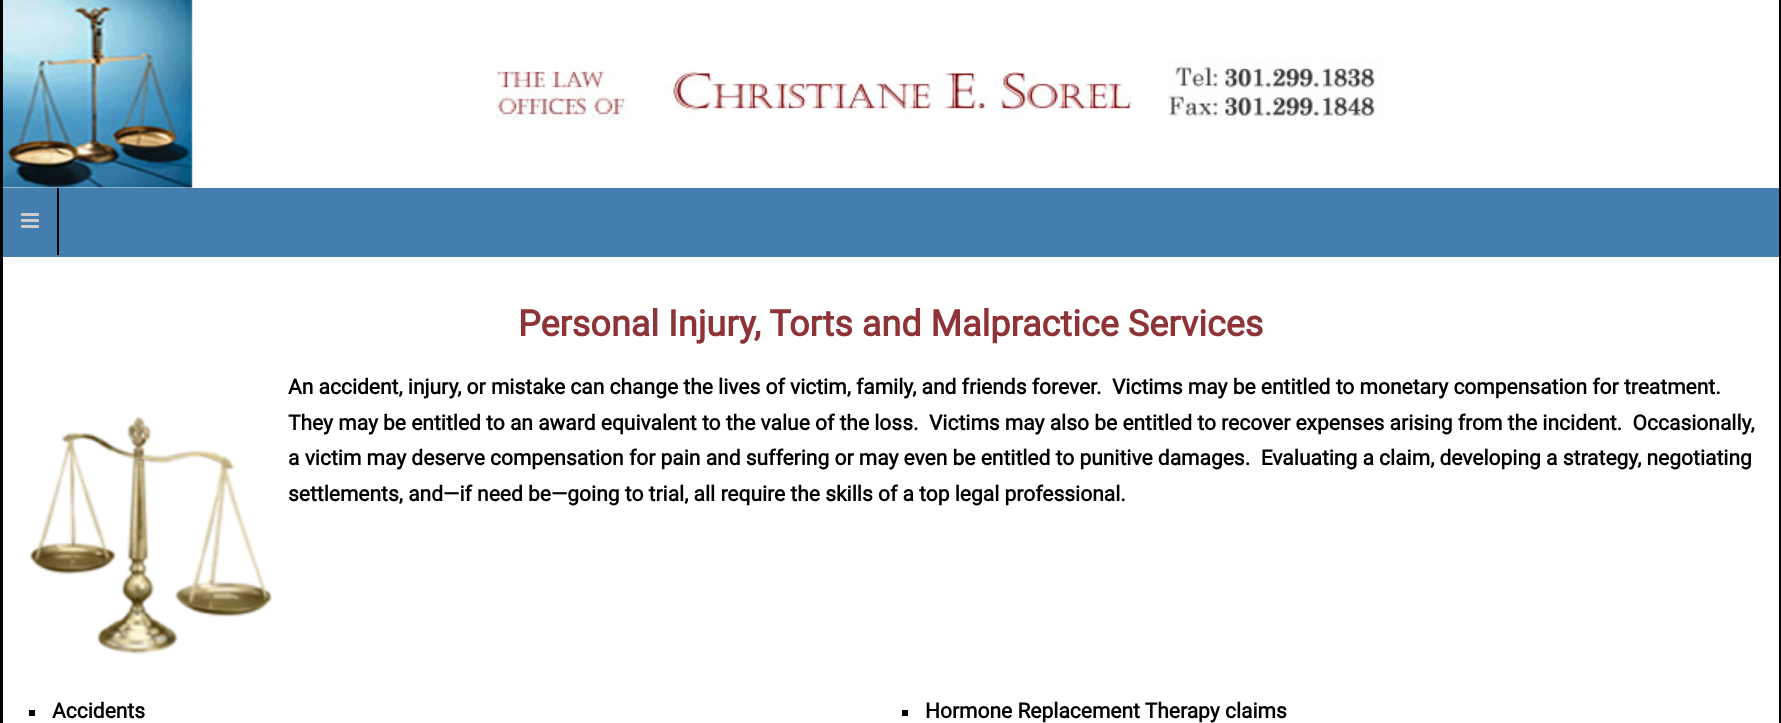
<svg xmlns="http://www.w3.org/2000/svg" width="1781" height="723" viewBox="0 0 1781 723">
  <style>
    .t1 { font: bold 36px Roboto; fill: #8e3338; }
    .t2 { font: bold 21px Roboto; fill: #000; }
  </style>
  <rect width="100%" height="100%" fill="#000"/>
  <rect x="3" y="0" width="1776" height="723" fill="#fff"/>
  <image x="3" y="0" width="1380" height="188" href="images/1.png"/>
  <rect x="3" y="188" width="1776" height="69" fill="#437eae"/>
  <rect x="57" y="188" width="2" height="67" fill="#000"/>
  <image x="21" y="213" width="18" height="15" href="images/2.png"/>
  <text x="518" y="336" class="t1">Personal Injury, Torts and Malpractice Services</text>
  <text x="288" y="394" class="t2" xml:space="preserve">An accident, injury, or mistake can change the lives of victim, family, and friends forever.  Victims may be entitled to monetary compensation for treatment.</text>
  <image x="29" y="416" width="244" height="239" href="images/3.png"/>
  <text x="288" y="430" class="t2" xml:space="preserve">They may be entitled to an award equivalent to the value of the loss.  Victims may also be entitled to recover expenses arising from the incident.  Occasionally,</text>
  <text x="288" y="465" class="t2" xml:space="preserve">a victim may deserve compensation for pain and suffering or may even be entitled to punitive damages.  Evaluating a claim, developing a strategy, negotiating</text>
  <text x="288" y="501" class="t2">settlements, and—if need be—going to trial, all require the skills of a top legal professional.</text>
  <rect x="29" y="710" width="6" height="6" fill="#000"/>
  <text x="52" y="718" class="t2">Accidents</text>
  <rect x="902" y="710" width="6" height="6" fill="#000"/>
  <text x="925" y="718" class="t2">Hormone Replacement Therapy claims</text>
</svg>
